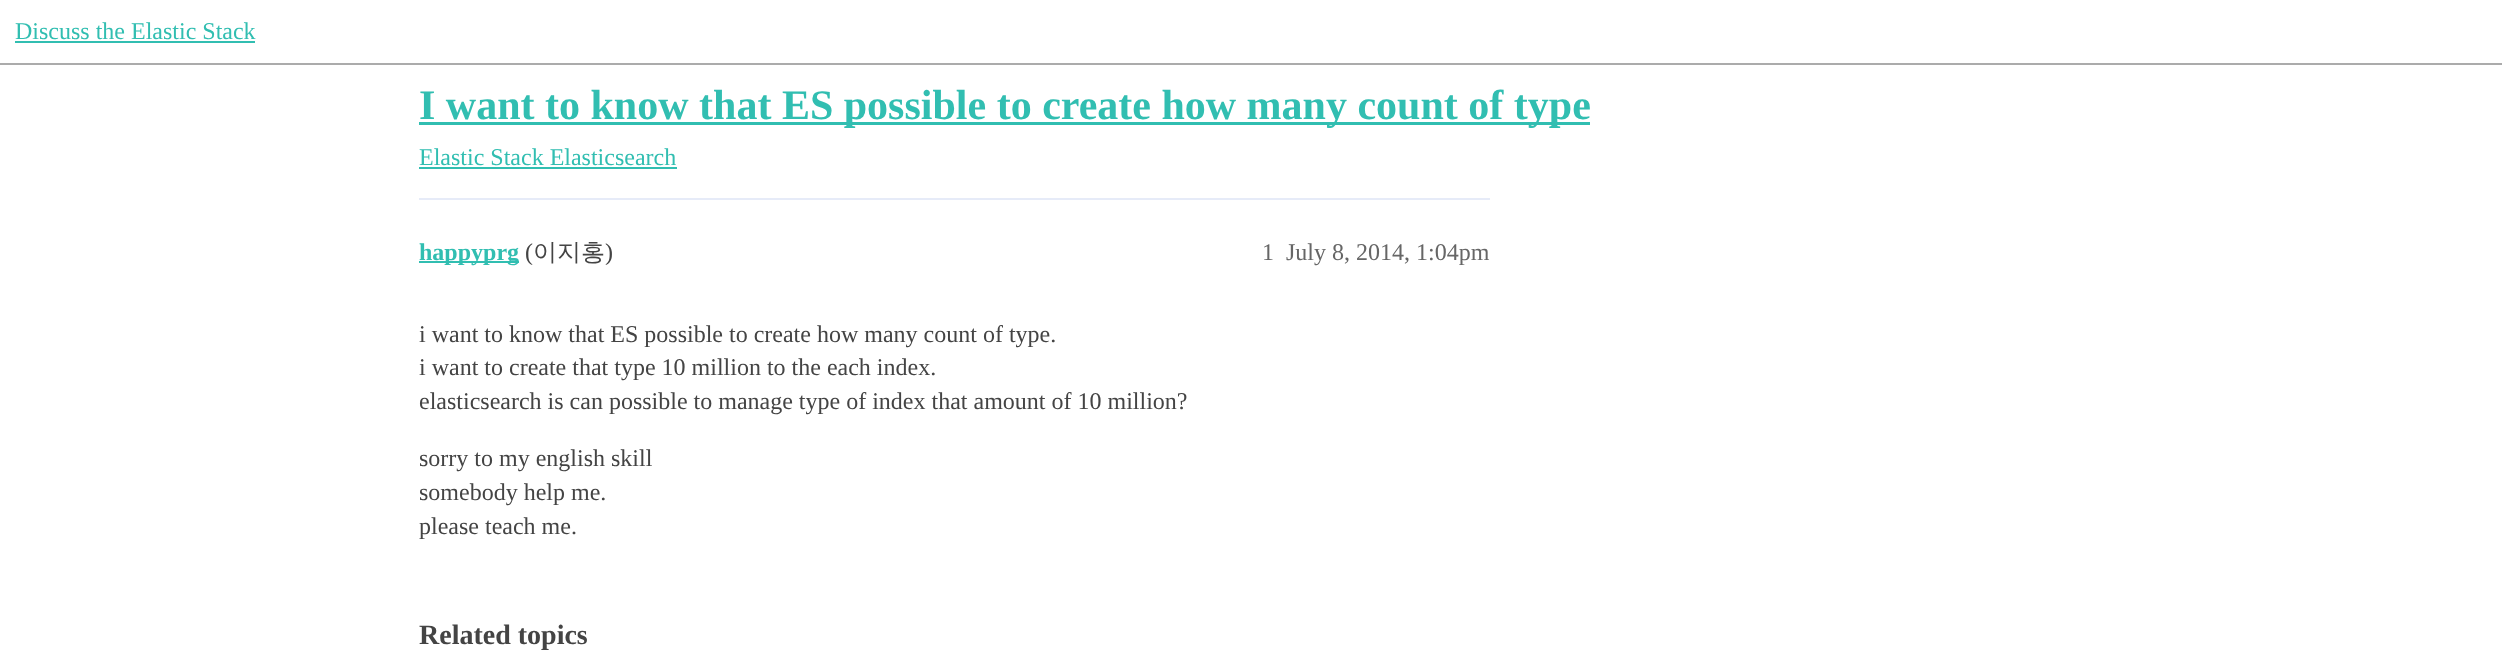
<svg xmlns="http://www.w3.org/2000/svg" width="2502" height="668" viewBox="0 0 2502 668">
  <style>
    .t1 { font: 24px Liberation Serif; fill: #31beb1; }
    .t2 { font: bold 42px Liberation Serif; fill: #31beb1; }
    .t3 { font: bold 24px Liberation Serif; fill: #31beb1; }
    .t4 { font: 24px Liberation Serif; fill: #444; }
    .t5 { font: 500 24px WenQuanYi Zen Hei; fill: #444; }
    .t6 { font: 24px Liberation Serif; fill: #666; }
    .t7 { font: bold 28px Liberation Serif; fill: #444; }
  </style>
  <rect width="100%" height="100%" fill="#fff"/>
  <rect x="0" y="63" width="2502" height="2" fill="#ababab"/>
  <text x="15" y="39" class="t1">Discuss the Elastic Stack</text>
  <rect x="15" y="41" width="240" height="2" fill="#31beb1"/>
  <rect x="419" y="122" width="1171" height="3" fill="#31beb1"/>
  <text x="419" y="119" class="t2">I want to know that ES possible to create how many count of type</text>
  <text x="419" y="165" class="t1">Elastic Stack Elasticsearch</text>
  <rect x="419" y="167" width="258" height="2" fill="#31beb1"/>
  <rect x="419" y="198" width="1071" height="2" fill="#e6ebf8"/>
  <rect x="419" y="261" width="100" height="2" fill="#31beb1"/>
  <text x="419" y="260" class="t3">happyprg</text>
  <text x="525" y="260" class="t4">(</text>
  <text x="533" y="260" class="t5">이지홍</text>
  <text x="605" y="260" class="t4">)</text>
  <text x="1262" y="260" class="t6">1</text>
  <text x="1286" y="260" class="t6">July 8, 2014, 1:04pm</text>
  <text x="419" y="342" class="t4">i want to know that ES possible to create how many count of type.</text>
  <text x="419" y="375" class="t4">i want to create that type 10 million to the each index.</text>
  <text x="419" y="409" class="t4">elasticsearch is can possible to manage type of index that amount of 10 million?</text>
  <text x="419" y="466" class="t4">sorry to my english skill</text>
  <text x="419" y="500" class="t4">somebody help me.</text>
  <text x="419" y="534" class="t4">please teach me.</text>
  <text x="419" y="644" class="t7">Related topics</text>
</svg>
